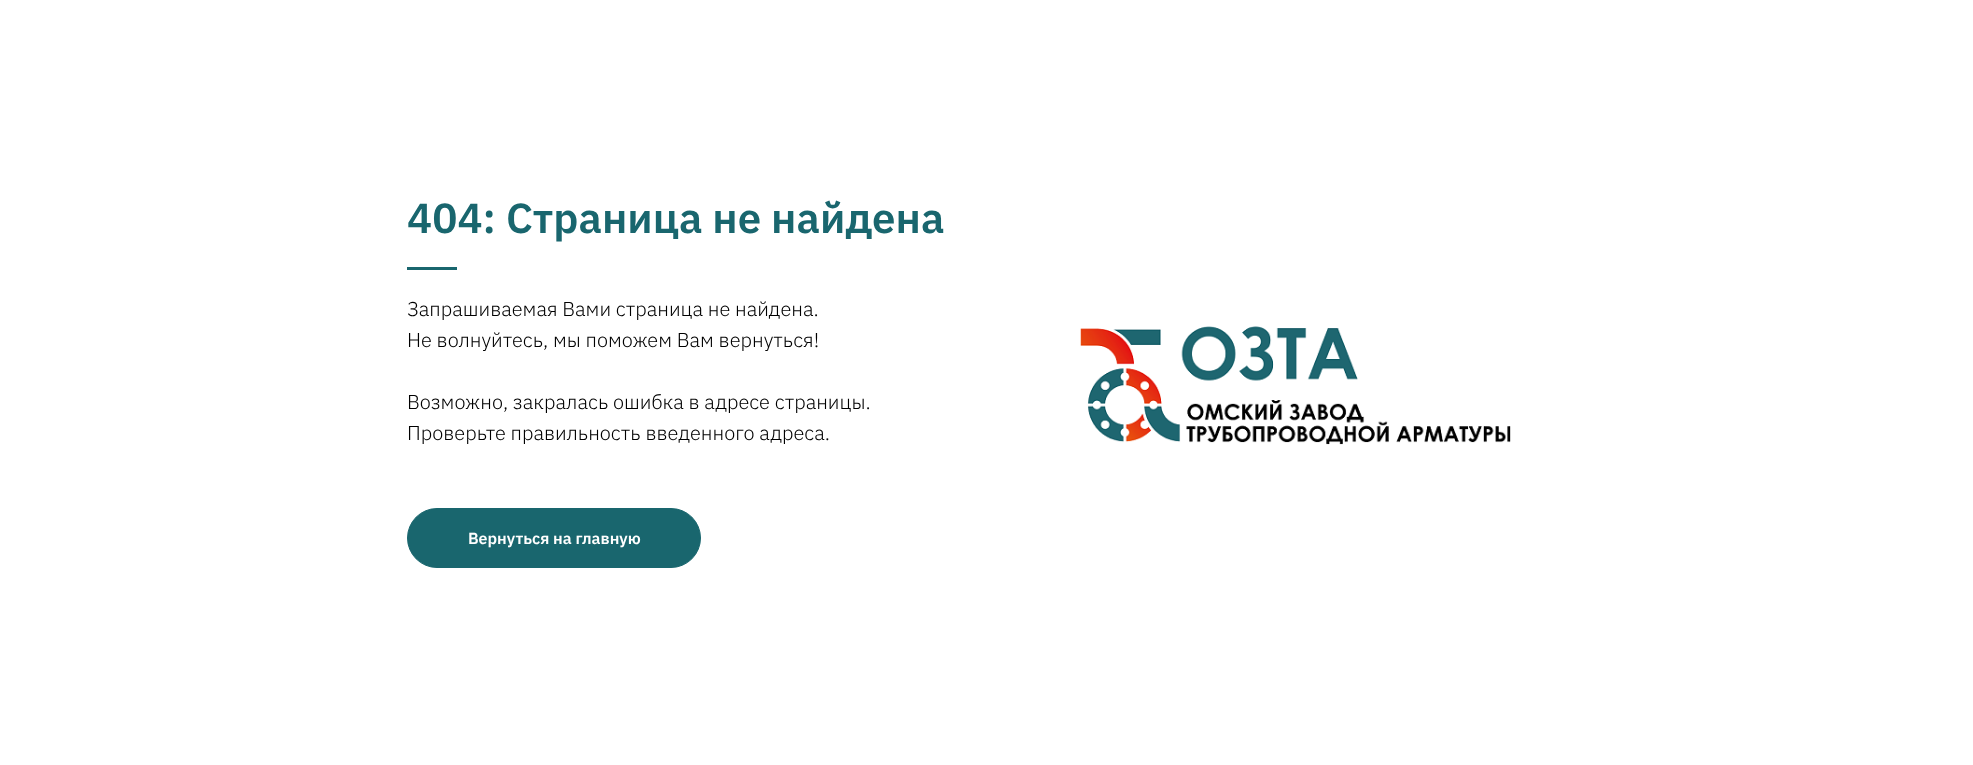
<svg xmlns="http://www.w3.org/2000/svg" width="1973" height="765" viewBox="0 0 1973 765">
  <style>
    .t1 { font: 600 42px IBM Plex Sans; fill: #19666e; }
    .t2 { font: 300 20px IBM Plex Sans; fill: #000; }
    .t3 { font: 600 16px IBM Plex Sans; fill: #fff; }
  </style>
  <rect width="100%" height="100%" fill="#fff"/>
  <text x="407" y="233" class="t1">404: Страница не найдена</text>
  <rect x="407" y="267" width="50" height="3" fill="#19666e"/>
  <text x="407" y="316" class="t2">Запрашиваемая Вами страница не найдена.</text>
  <text x="407" y="347" class="t2">Не волнуйтесь, мы поможем Вам вернуться!</text>
  <text x="407" y="409" class="t2">Возможно, закралась ошибка в адресе страницы.</text>
  <text x="407" y="440" class="t2">Проверьте правильность введенного адреса.</text>
  <rect x="407.5" y="508.5" width="293" height="59" rx="29.5" fill="#19666e" stroke="#19666e"/>
  <text x="468" y="544" class="t3">Вернуться на главную</text>
  <image x="1080" y="326" width="431" height="119" href="images/1.png"/>
</svg>
